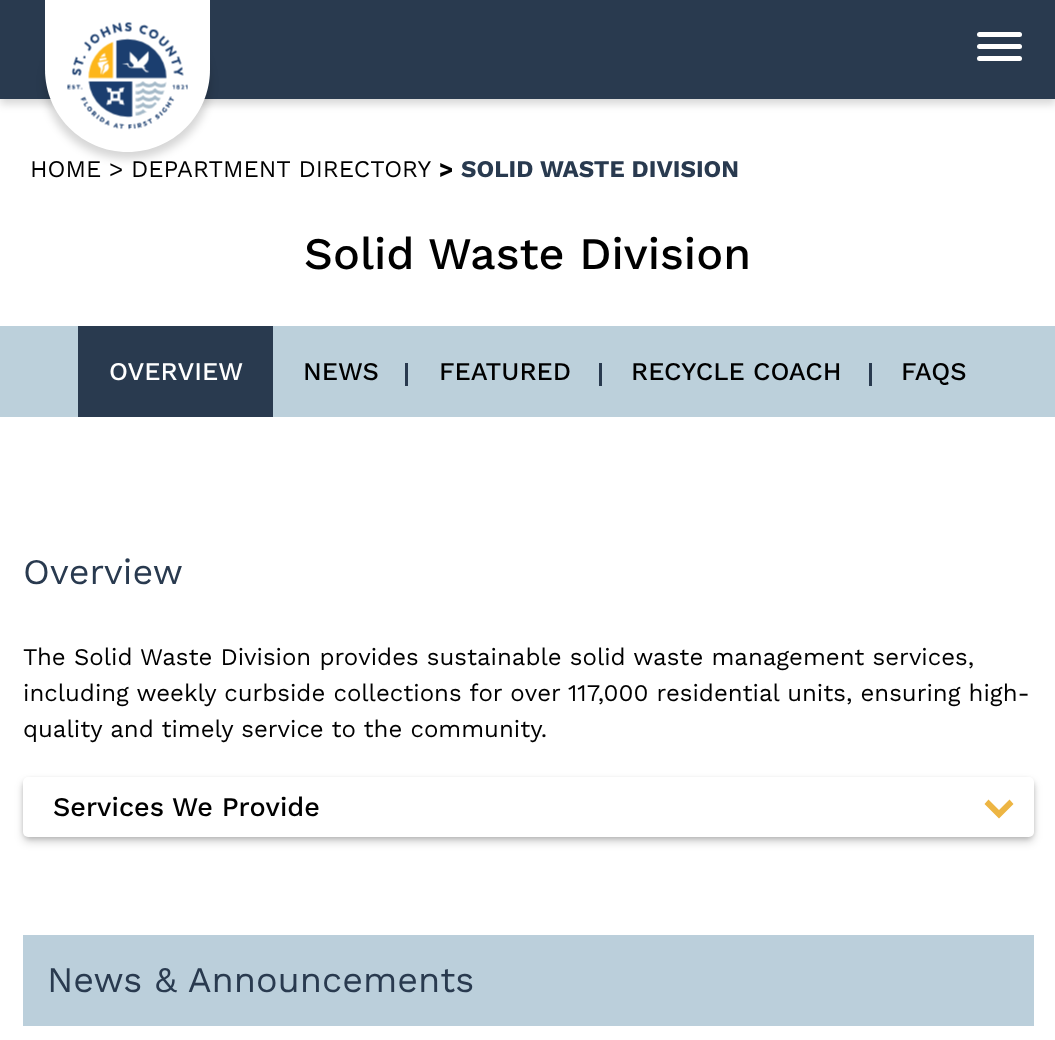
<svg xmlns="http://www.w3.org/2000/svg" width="1055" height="1040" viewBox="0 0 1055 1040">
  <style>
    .t1 { font: 24px Work Sans; fill: #000; }
    .t2 { font: bold 24px Work Sans; fill: #000; }
    .t3 { font: bold 24px Work Sans; fill: #293a4f; }
    .t4 { font: 500 45px Work Sans; fill: #000; }
    .t5 { font: 500 25.5px Work Sans; fill: #fff; }
    .t6 { font: 500 25.5px Work Sans; fill: #000; }
    .t7 { font: 36px Work Sans; fill: #293a4f; }
    .t8 { font: 500 27px Work Sans; fill: #000; }
  </style>
  <rect width="100%" height="100%" fill="#fff"/>
  <rect x="0" y="5" width="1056" height="99" fill="#00000029" filter="blur(4.5px)"/>
  <rect x="0" y="0" width="1055" height="99" fill="#293a4f"/>
  <rect x="45" y="8" width="165" height="151" rx="83" fill="#00000029" filter="blur(4.5px)"/>
  <path d="M45 0H210V69.5C210 115 173 152 127.5 152C82 152 45 115 45 69.5Z" fill="#fff"/>
  <image x="67" y="22" width="121" height="108" href="images/1.png"/>
  <rect x="977" y="32" width="45" height="5" rx="2.5" fill="#fff"/>
  <rect x="977" y="44" width="45" height="5" rx="2.5" fill="#fff"/>
  <rect x="977" y="56" width="45" height="5" rx="2.5" fill="#fff"/>
  <text x="30" y="177" class="t1">HOME</text>
  <text x="109" y="177" class="t1">&gt;</text>
  <text x="131" y="177" class="t1">DEPARTMENT DIRECTORY</text>
  <text x="439" y="177" class="t2">&gt;</text>
  <text x="461" y="177" class="t3">SOLID WASTE DIVISION</text>
  <text x="304" y="269" class="t4">Solid Waste Division</text>
  <rect x="0" y="326" width="1055" height="91" fill="#bcd0db"/>
  <rect x="78" y="326" width="195" height="91" fill="#293a4f"/>
  <text x="109" y="380" class="t5">OVERVIEW</text>
  <text x="303" y="380" class="t6">NEWS</text>
  <rect x="405" y="363" width="3" height="23" fill="#293a4f"/>
  <text x="439" y="380" class="t6">FEATURED</text>
  <rect x="599" y="363" width="3" height="23" fill="#293a4f"/>
  <text x="631" y="380" class="t6">RECYCLE COACH</text>
  <rect x="869" y="363" width="3" height="23" fill="#293a4f"/>
  <text x="901" y="380" class="t6">FAQS</text>
  <text x="23" y="584" class="t7">Overview</text>
  <text x="23" y="665" class="t1">The Solid Waste Division provides sustainable solid waste management services,</text>
  <text x="23" y="701" class="t1">including weekly curbside collections for over 117,000 residential units, ensuring high-</text>
  <text x="23" y="737" class="t1">quality and timely service to the community.</text>
  <rect x="23" y="779" width="1011" height="60" rx="8" fill="#00000029" filter="blur(2px)"/>
  <rect x="23" y="782" width="1011" height="60" rx="5" fill="#00000029" filter="blur(4.5px)"/>
  <rect x="23" y="777" width="1011" height="60" rx="5" fill="#fff"/>
  <text x="53" y="816" class="t8">Services We Provide</text>
  <path d="M999 818.5L984.5 804L988.5 799.5L999 810L1009.5 799.5L1013.5 804Z" fill="#edb543"/>
  <rect x="23" y="935" width="1011" height="91" fill="#bbcfdb"/>
  <text x="47" y="992" class="t7">News &amp; Announcements</text>
</svg>
